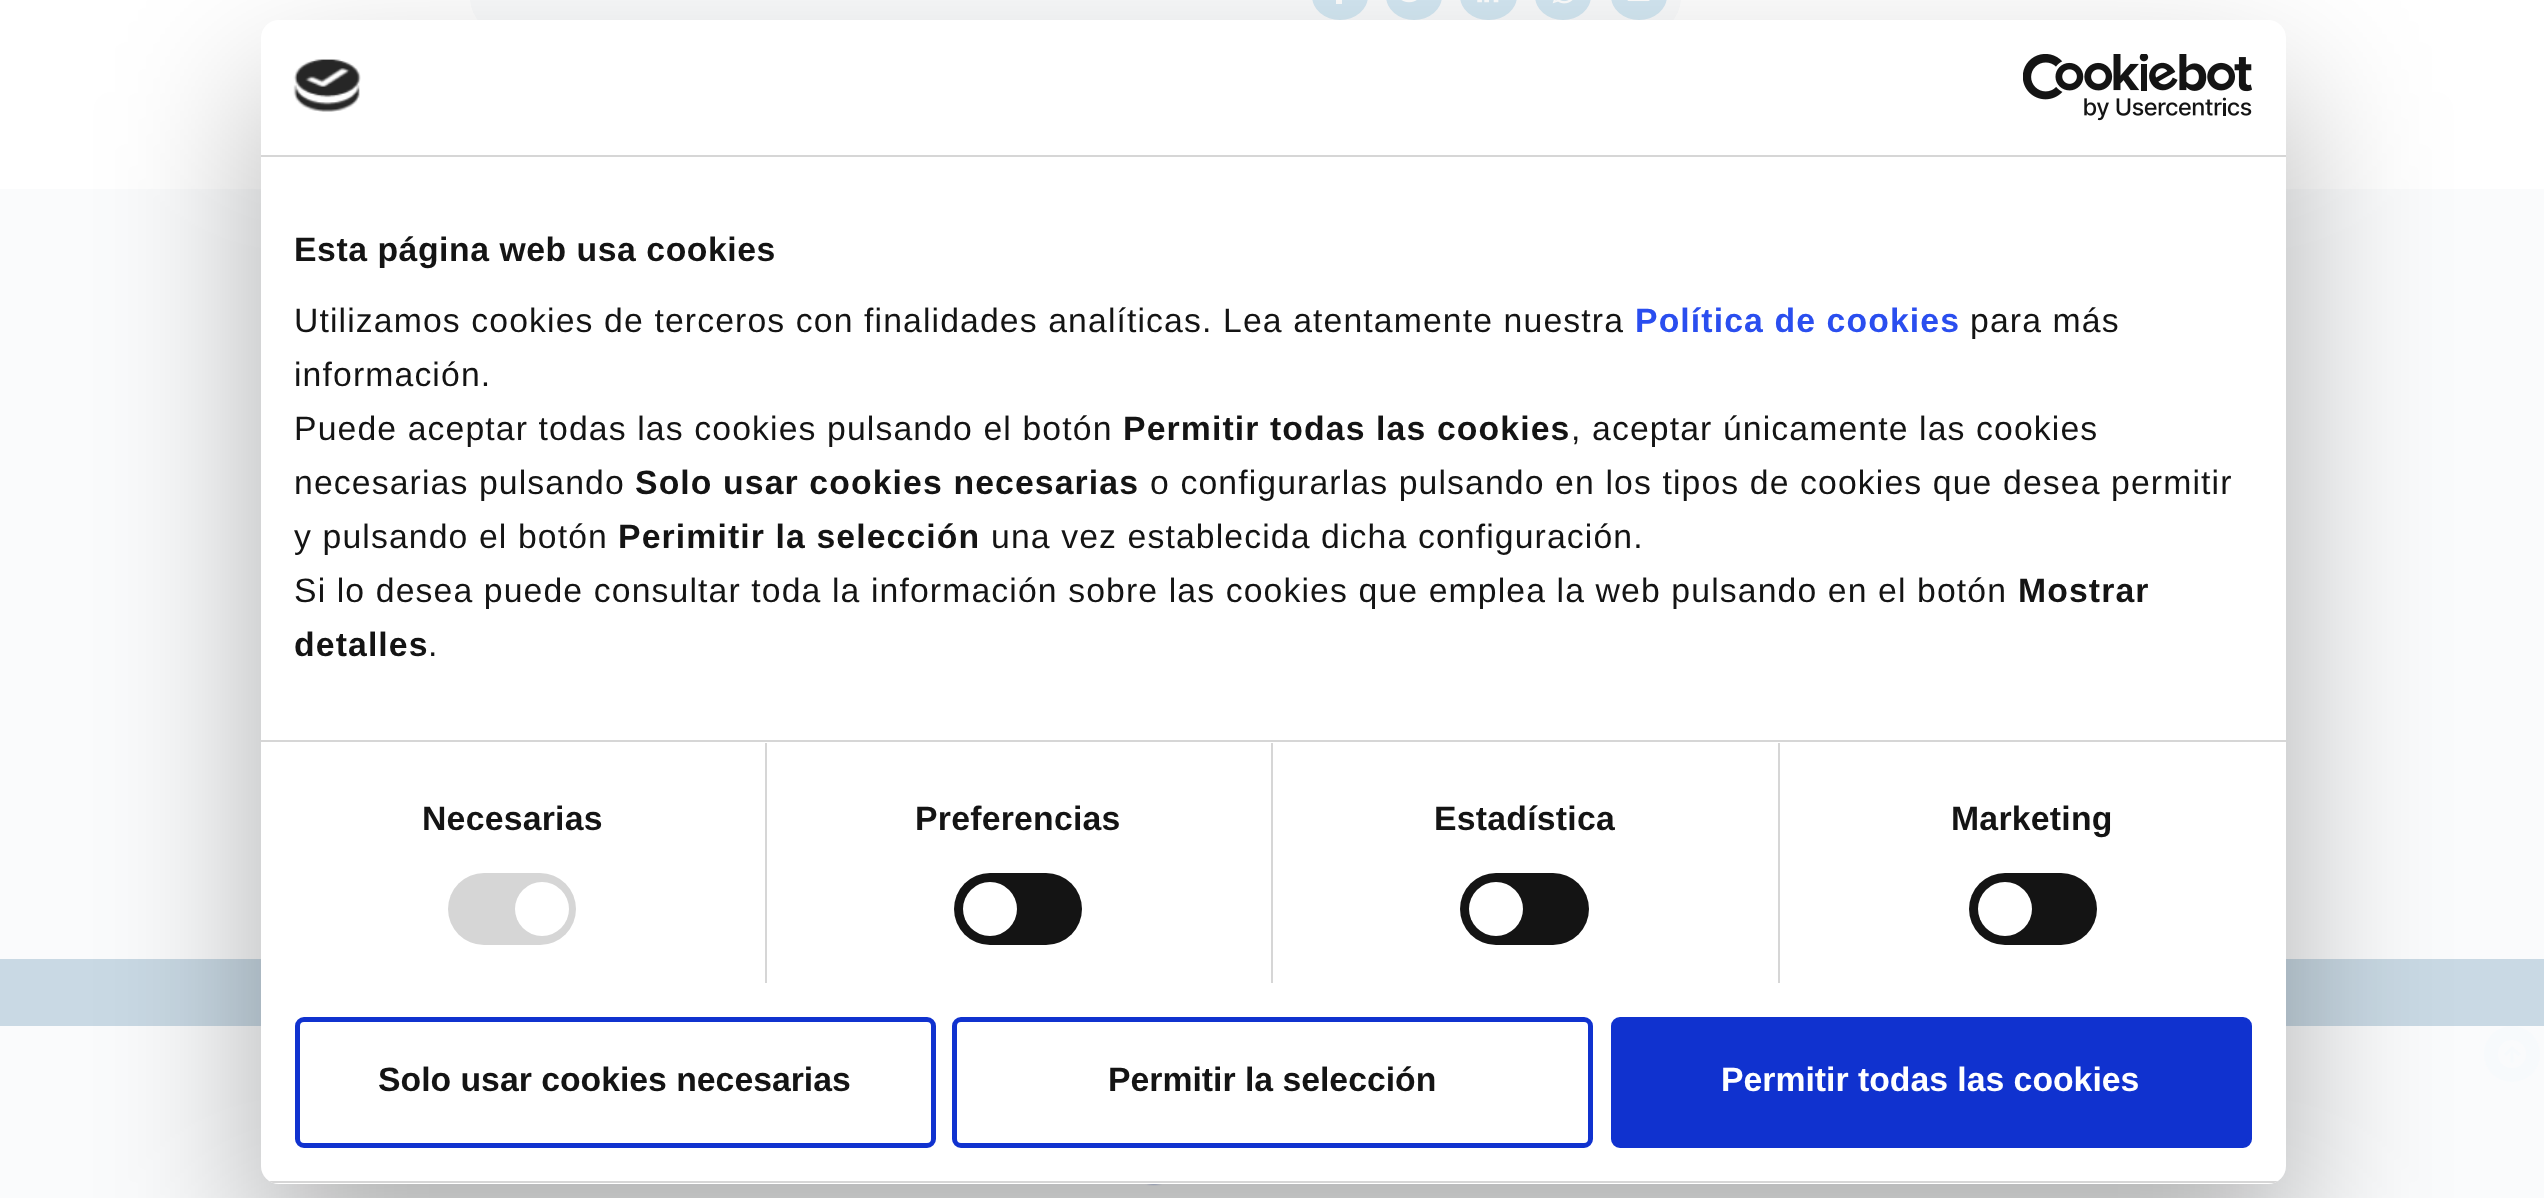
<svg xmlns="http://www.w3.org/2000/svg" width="2544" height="1198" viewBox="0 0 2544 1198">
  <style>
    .t1 { font: bold 33.75px Liberation Sans; letter-spacing: 0.55px; fill: #141414; }
    .t2 { font: 33.75px Liberation Sans; letter-spacing: 1.12px; fill: #141414; }
    .t3 { font: bold 33.75px Liberation Sans; letter-spacing: 1.12px; fill: #2a4eef; }
    .t4 { font: bold 33.75px Liberation Sans; letter-spacing: 1.12px; fill: #141414; }
    .t5 { font: bold 33.75px Liberation Sans; letter-spacing: 0.25px; fill: #141414; }
    .t6 { font: bold 33.75px Liberation Sans; fill: #141414; }
    .t7 { font: bold 33.75px Liberation Sans; fill: #fff; }
  </style>
  <defs>
    <clipPath id="clip1"><rect x="261" y="20" width="2025" height="1164" rx="18"/></clipPath>
  </defs>
  <rect width="100%" height="100%" fill="#fff"/>
  <rect x="470" y="-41" width="1211" height="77" rx="40.5" fill="#fafbfc"/>
  <rect x="1312" y="-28" width="56" height="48" rx="28" fill="#d4e8f3"/>
  <rect x="1336" y="0" width="6" height="4" fill="#fff"/>
  <rect x="1386" y="-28" width="56" height="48" rx="28" fill="#d4e8f3"/>
  <image x="1401" y="0" width="16" height="3" href="images/1.png"/>
  <rect x="1460" y="-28" width="57" height="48" rx="28" fill="#d4e8f3"/>
  <image x="1477" y="0" width="22" height="3" href="images/2.png"/>
  <rect x="1535" y="-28" width="56" height="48" rx="28" fill="#d4e8f3"/>
  <image x="1552" y="0" width="21" height="4" href="images/3.png"/>
  <rect x="1611" y="-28" width="56" height="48" rx="28" fill="#d4e8f3"/>
  <image x="1627" y="0" width="23" height="2" href="images/4.png"/>
  <rect x="0" y="189" width="2544" height="1009" fill="#fafbfc"/>
  <rect x="0" y="959" width="2544" height="67" fill="#c9d9e4"/>
  <image x="1145" y="1184" width="17" height="2" href="images/5.png"/>
  <circle cx="2512" cy="1054" r="28" fill="#f7fafc"/>
  <path d="M2512 1068C2493.5 1068 2493.5 1040 2512 1040C2515 1040 2517.5 1041 2520 1042.5C2531.5 1050.5 2525.5 1068.5 2512 1068ZM2510.5 1051.5V1062.5H2513.5V1051.5L2518.5 1056L2520.5 1054L2512 1046L2504 1054L2506 1056Z" fill="#fafbfc"/>
  <rect x="261" y="92" width="2025" height="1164" rx="18" fill="#0000004d" filter="blur(76.5px)"/>
  <rect x="261" y="20" width="2025" height="1164" rx="18" fill="#fff"/>
  <rect x="261" y="155" width="2025" height="2" fill="#d6d6d6"/>
  <image x="293" y="59" width="68" height="53" href="images/6.png"/>
  <image x="2023" y="54" width="229" height="67" href="images/7.png"/>
  <rect x="261" y="740" width="2025" height="2" fill="#d6d6d6"/>
  <text x="294" y="261" class="t1">Esta página web usa cookies</text>
  <text x="294" y="332" class="t2">Utilizamos cookies de terceros con finalidades analíticas. Lea atentamente nuestra</text>
  <text x="1635" y="332" class="t3">Política de cookies</text>
  <text x="1970" y="332" class="t2">para más</text>
  <text x="294" y="386" class="t2">información.</text>
  <text x="294" y="440" class="t2">Puede aceptar todas las cookies pulsando el botón</text>
  <text x="1123" y="440" class="t4">Permitir todas las cookies</text>
  <text x="1571" y="440" class="t2">, aceptar únicamente las cookies</text>
  <text x="294" y="494" class="t2">necesarias pulsando</text>
  <text x="635" y="494" class="t4">Solo usar cookies necesarias</text>
  <text x="1150" y="494" class="t2">o configurarlas pulsando en los tipos de cookies que desea permitir</text>
  <text x="294" y="548" class="t2">y pulsando el botón</text>
  <text x="618" y="548" class="t4">Perimitir la selección</text>
  <text x="991" y="548" class="t2">una vez establecida dicha configuración.</text>
  <text x="294" y="602" class="t2">Si lo desea puede consultar toda la información sobre las cookies que emplea la web pulsando en el botón</text>
  <text x="2018" y="602" class="t4">Mostrar</text>
  <text x="294" y="656" class="t4">detalles</text>
  <text x="428" y="656" class="t2">.</text>
  <rect x="765" y="743" width="2" height="240" fill="#d6d6d6"/>
  <text x="422" y="830" class="t5">Necesarias</text>
  <rect x="448" y="873" width="128" height="72" rx="36" fill="#d6d6d6"/>
  <circle cx="542" cy="909" r="27" fill="#fff"/>
  <rect x="1271" y="743" width="2" height="240" fill="#d6d6d6"/>
  <text x="915" y="830" class="t5">Preferencias</text>
  <rect x="954" y="873" width="128" height="72" rx="36" fill="#141414"/>
  <circle cx="990" cy="909" r="27" fill="#fff"/>
  <rect x="1778" y="743" width="2" height="240" fill="#d6d6d6"/>
  <text x="1434" y="830" class="t5">Estadística</text>
  <rect x="1460" y="873" width="129" height="72" rx="36" fill="#141414"/>
  <circle cx="1496" cy="909" r="27" fill="#fff"/>
  <text x="1951" y="830" class="t5">Marketing</text>
  <rect x="1969" y="873" width="128" height="72" rx="36" fill="#141414"/>
  <circle cx="2005" cy="909" r="27" fill="#fff"/>
  <g clip-path="url(#clip1)">
    <rect x="261" y="1181" width="2025" height="2" fill="#d6d6d6"/>
  </g>
  <rect x="297.5" y="1019.5" width="636" height="126" rx="6.5" fill="none" stroke="#1032cf" stroke-width="5"/>
  <text x="378" y="1091" class="t6">Solo usar cookies necesarias</text>
  <rect x="954.5" y="1019.5" width="636" height="126" rx="6.5" fill="none" stroke="#1032cf" stroke-width="5"/>
  <text x="1108" y="1091" class="t6">Permitir la selección</text>
  <rect x="1613.5" y="1019.5" width="636" height="126" rx="6.5" fill="#1032cf" stroke="#1032cf" stroke-width="5"/>
  <text x="1721" y="1091" class="t7">Permitir todas las cookies</text>
</svg>
